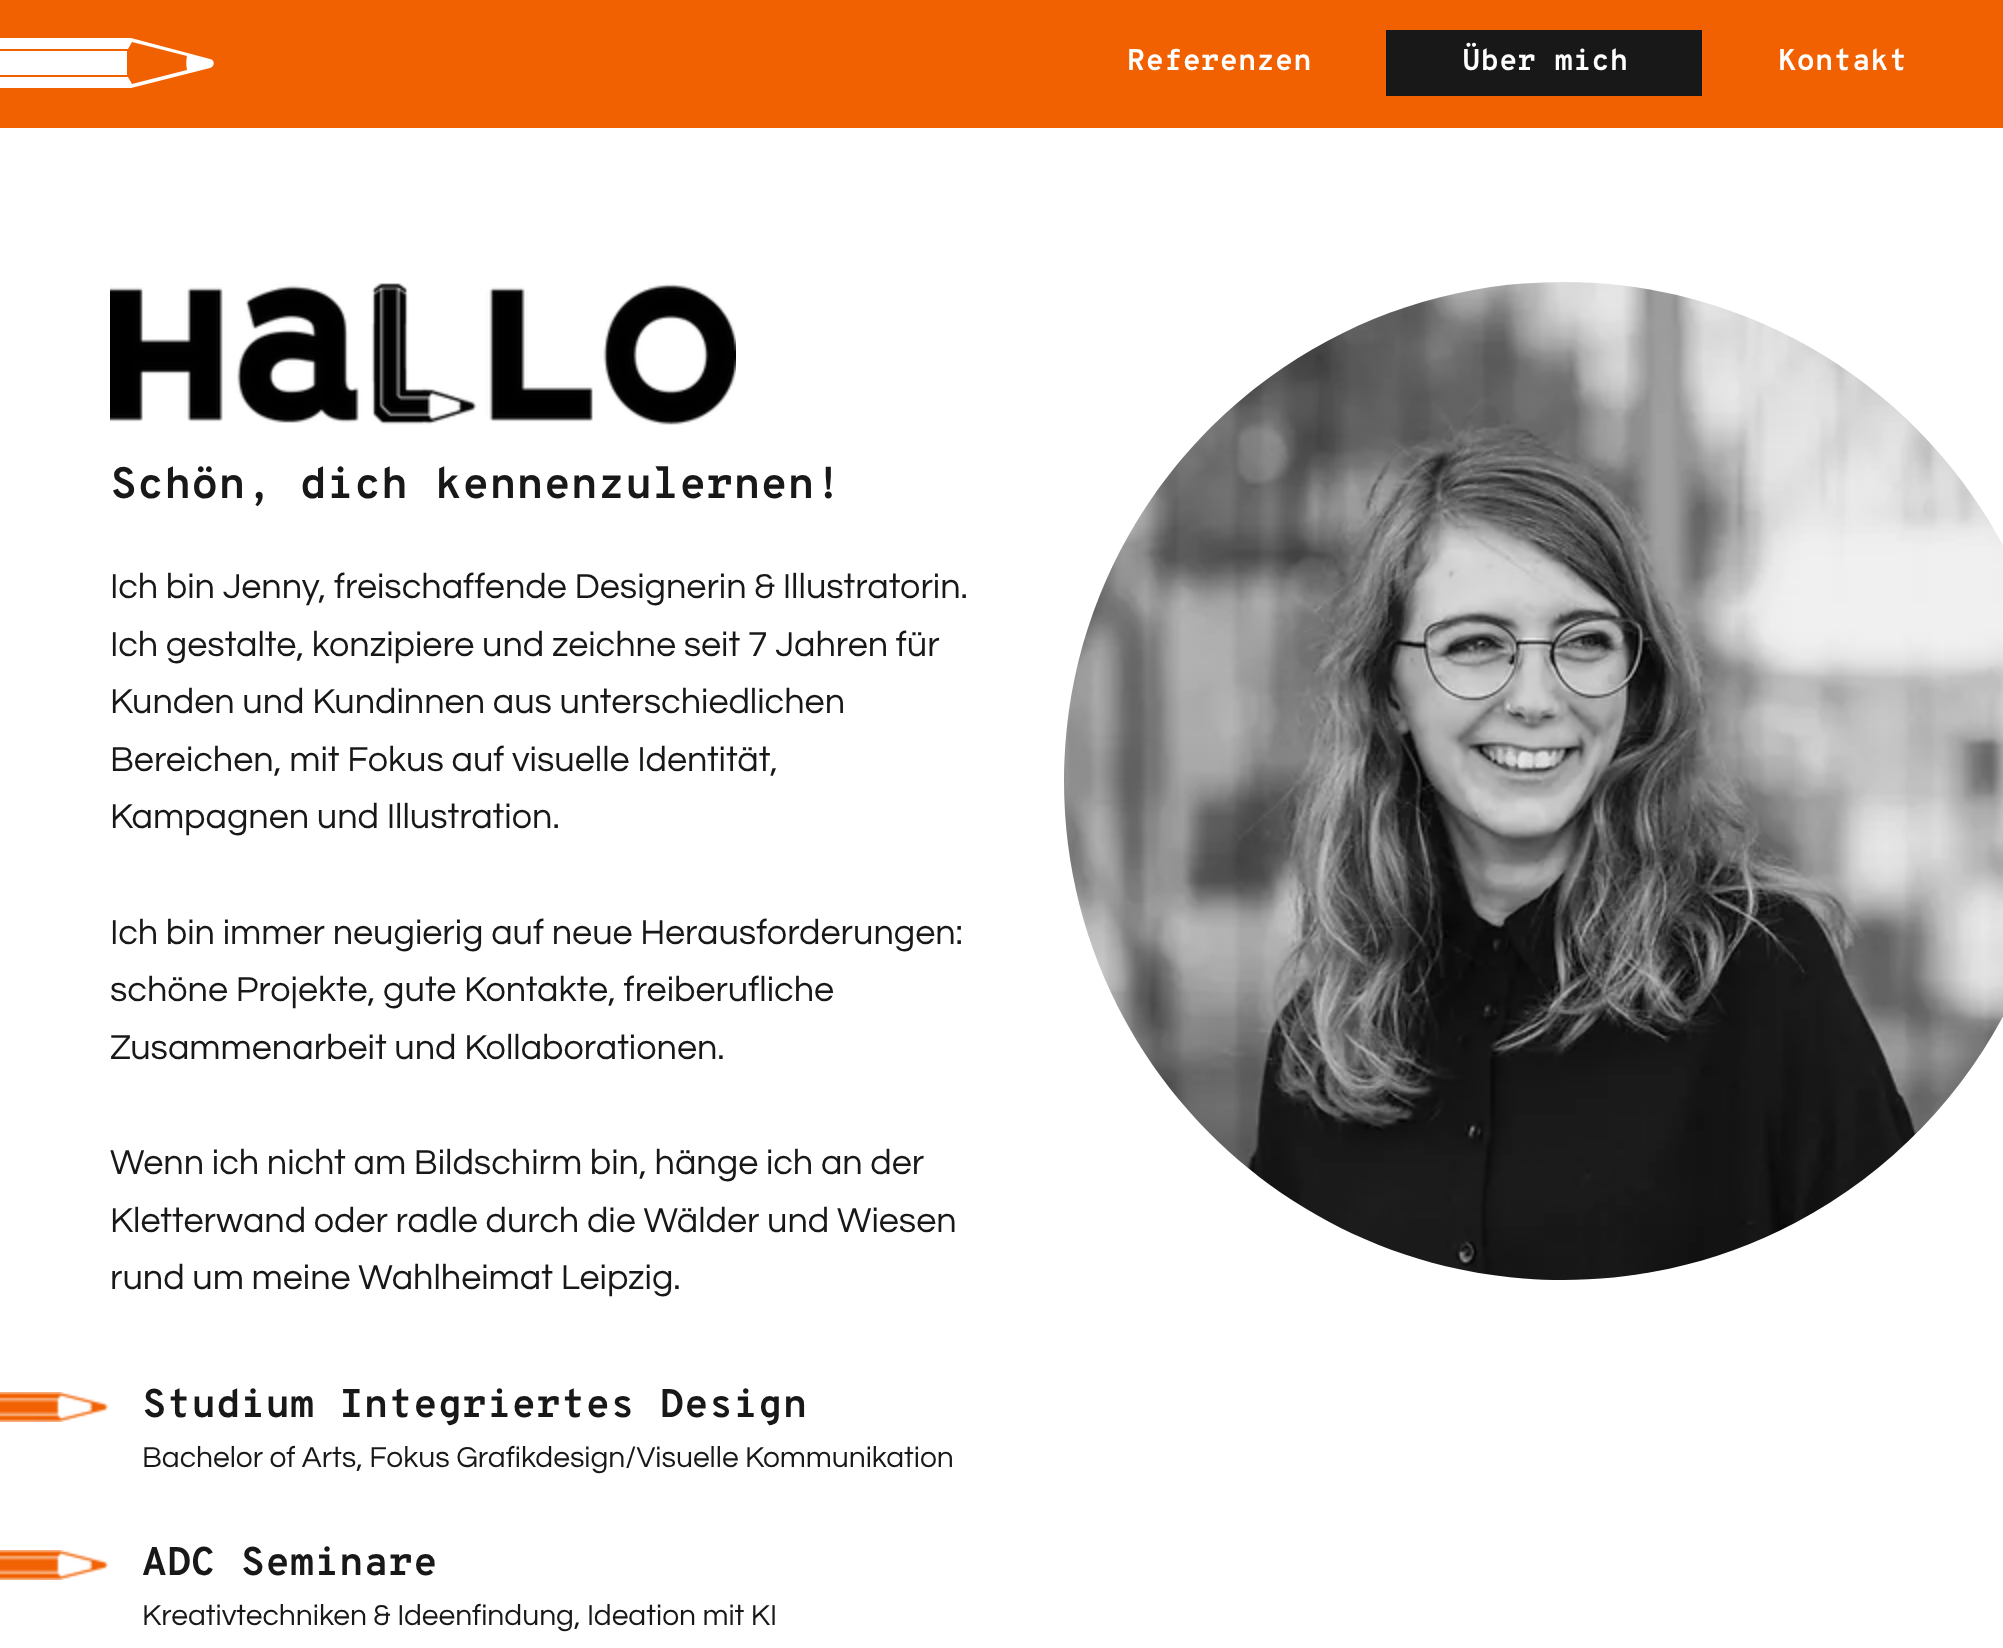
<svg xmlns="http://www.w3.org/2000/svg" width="2003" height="1648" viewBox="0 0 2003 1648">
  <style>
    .t1 { font: bold 30px Overpass Mono; fill: #fff; }
    .t2 { font: bold 44px Overpass Mono; fill: #181818; }
    .t3 { font: 36px Questrial; fill: #181818; }
    .t4 { font: bold 40px Overpass Mono; fill: #181818; }
    .t5 { font: 30px Questrial; fill: #181818; }
  </style>
  <rect width="100%" height="100%" fill="#fff"/>
  <rect x="0" y="0" width="2003" height="128" fill="#f26101"/>
  <path d="M210 59L131 38H-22L-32 49H128L132 42L187 56C186 61 186 65 187 70L132 84L128 77H-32L-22 88H131L210 68C215 66 215 60 210 59Z" fill="#fff"/>
  <rect x="0" y="51" width="127" height="24" fill="#fff"/>
  <text x="1127" y="70" class="t1">Referenzen</text>
  <rect x="1386" y="30" width="316" height="66" fill="#181818"/>
  <text x="1462" y="70" class="t1">Über mich</text>
  <text x="1778" y="70" class="t1">Kontakt</text>
  <image x="110" y="283" width="626" height="142" href="images/1.png"/>
  <image x="1064" y="282" width="939" height="998" href="images/2.png"/>
  <text x="110" y="498" class="t2">Schön, dich kennenzulernen!</text>
  <text x="110" y="598" class="t3">Ich bin Jenny, freischaffende Designerin &amp; Illustratorin.</text>
  <text x="110" y="656" class="t3">Ich gestalte, konzipiere und zeichne seit 7 Jahren für</text>
  <text x="110" y="713" class="t3">Kunden und Kundinnen aus unterschiedlichen</text>
  <text x="110" y="771" class="t3">Bereichen, mit Fokus auf visuelle Identität,</text>
  <text x="110" y="828" class="t3">Kampagnen und Illustration.</text>
  <text x="110" y="944" class="t3">Ich bin immer neugierig auf neue Herausforderungen:</text>
  <text x="110" y="1001" class="t3">schöne Projekte, gute Kontakte, freiberufliche</text>
  <text x="110" y="1059" class="t3">Zusammenarbeit und Kollaborationen.</text>
  <text x="110" y="1174" class="t3">Wenn ich nicht am Bildschirm bin, hänge ich an der</text>
  <text x="110" y="1232" class="t3">Kletterwand oder radle durch die Wälder und Wiesen</text>
  <text x="110" y="1289" class="t3">rund um meine Wahlheimat Leipzig.</text>
  <image x="0" y="1392" width="109" height="30" href="images/3.png"/>
  <text x="142" y="1417" class="t4">Studium Integriertes Design</text>
  <text x="142" y="1467" class="t5">Bachelor of Arts, Fokus Grafikdesign/Visuelle Kommunikation</text>
  <image x="0" y="1550" width="109" height="30" href="images/3.png"/>
  <text x="142" y="1575" class="t4">ADC Seminare</text>
  <text x="142" y="1625" class="t5">Kreativtechniken &amp; Ideenfindung, Ideation mit KI</text>
</svg>
